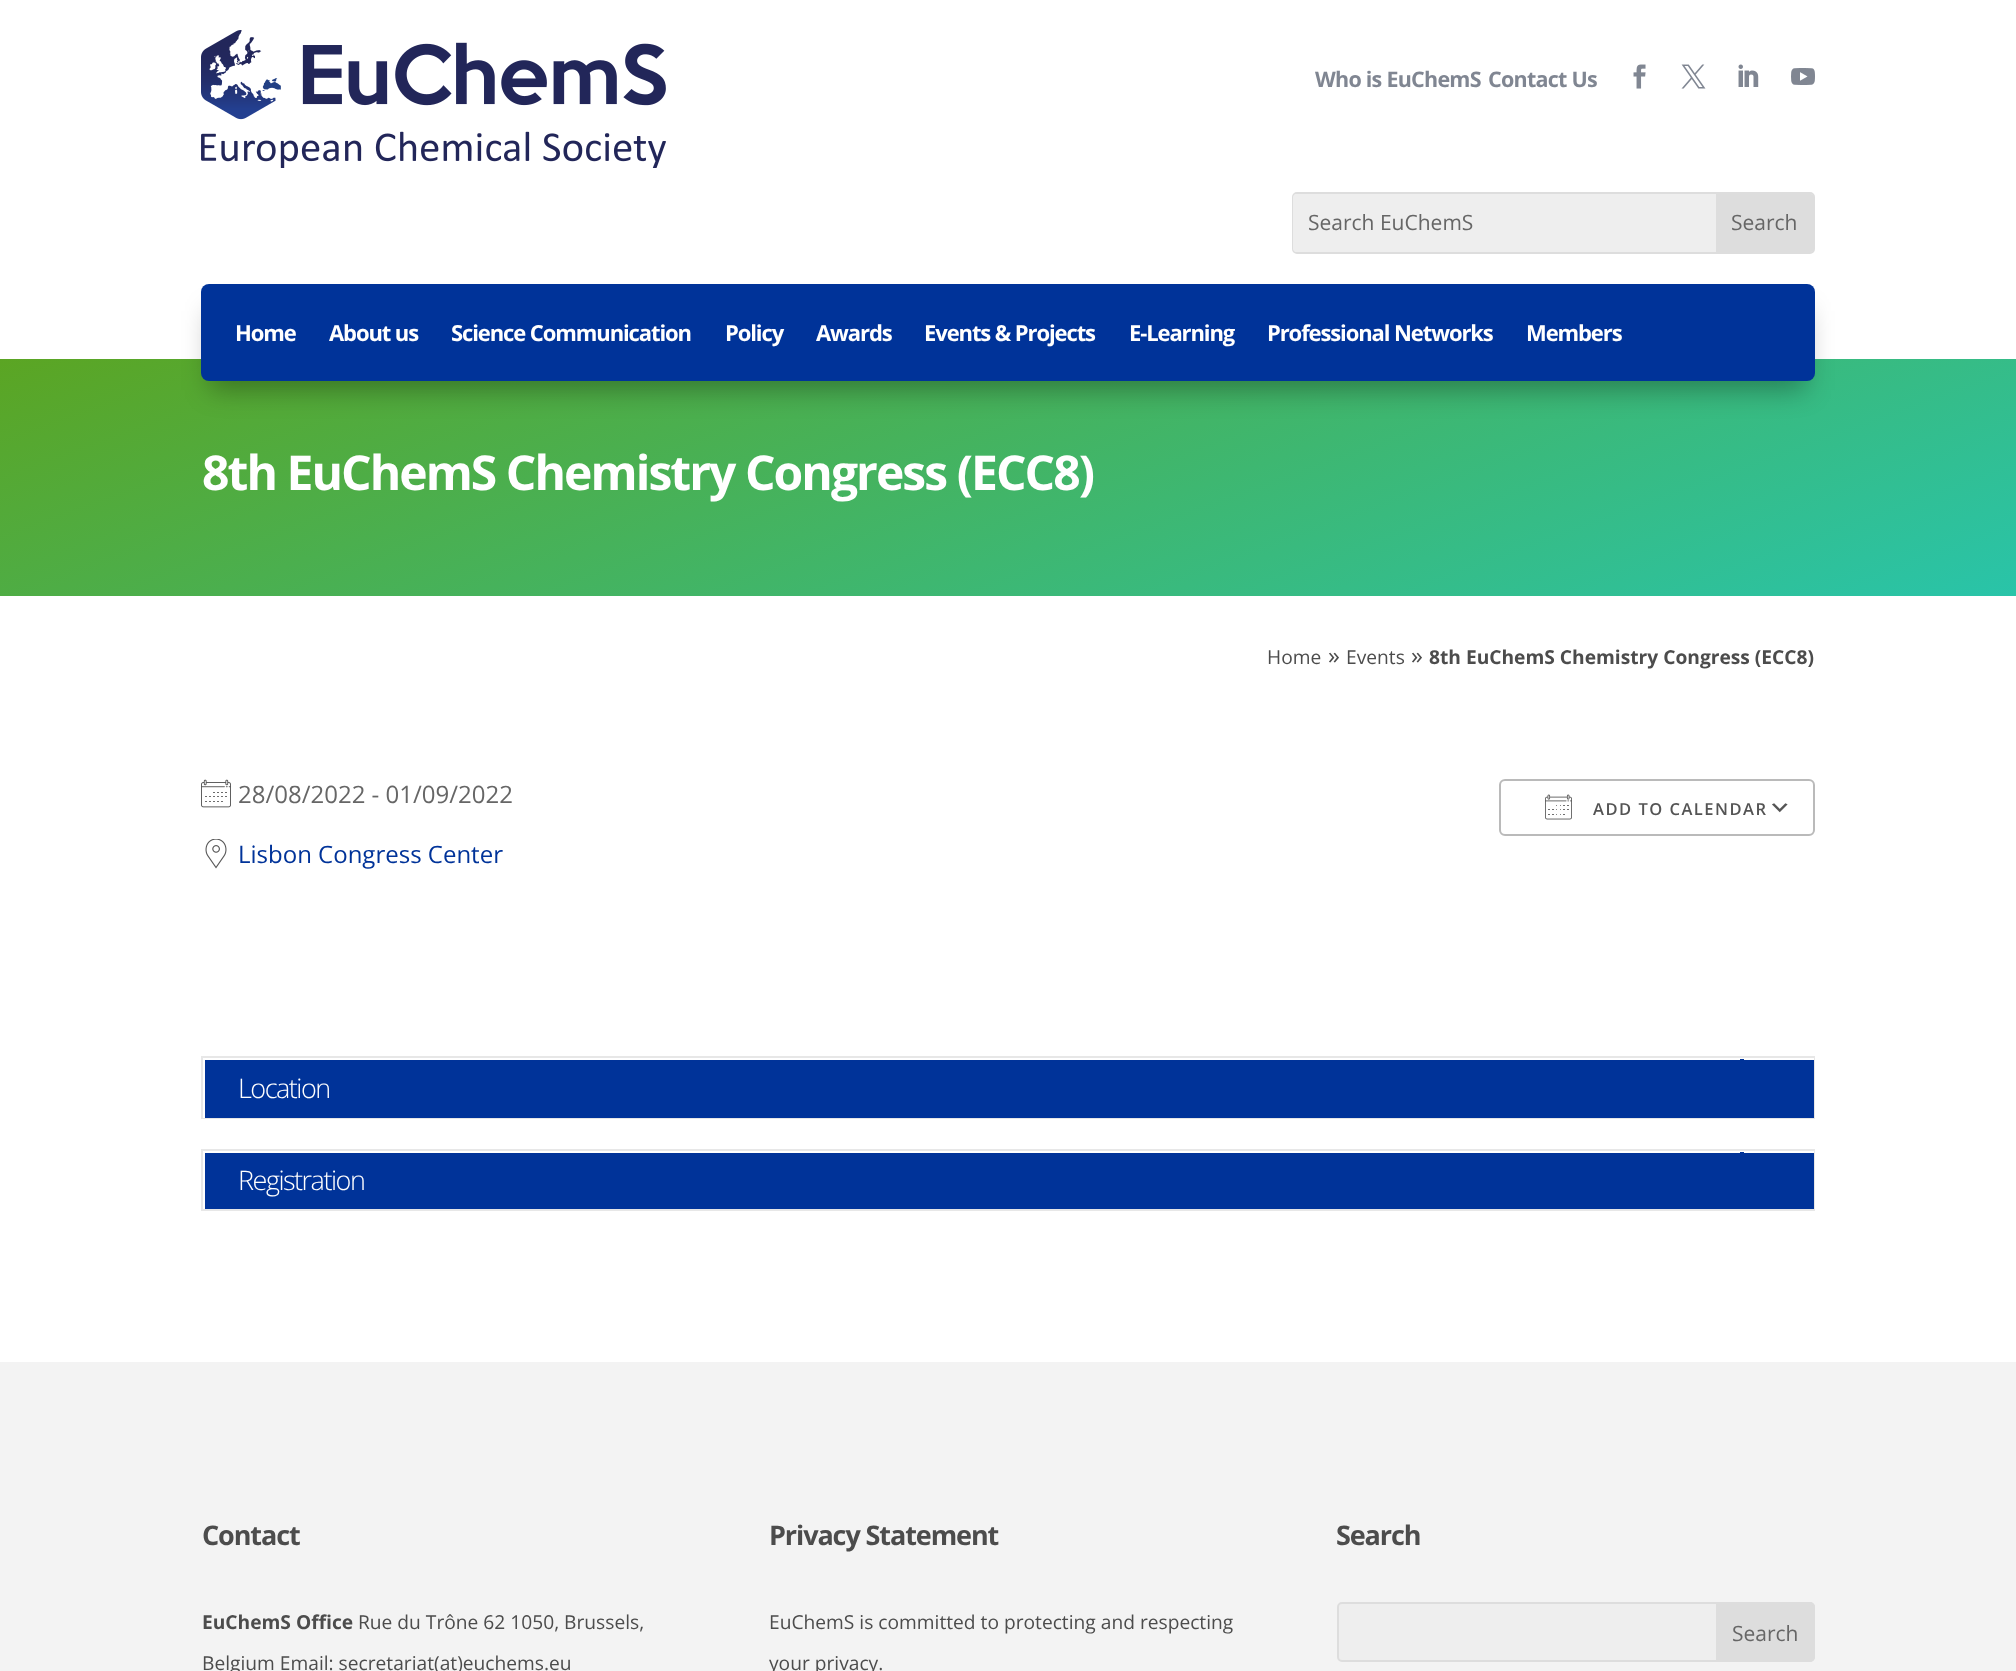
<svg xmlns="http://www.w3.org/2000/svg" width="2016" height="1671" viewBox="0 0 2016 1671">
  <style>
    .t1 { font: bold 21.5px Open Sans; letter-spacing: -0.75px; fill: #808692; }
    .t2 { font: 21px Open Sans; fill: #666; }
    .t3 { font: bold 22px Open Sans; letter-spacing: -1.1px; fill: #fff; }
    .t4 { font: bold 48px Open Sans; letter-spacing: -1.95px; fill: #fff; }
    .t5 { font: 19.2px Open Sans; fill: #4c4c4c; }
    .t6 { font: 24px Open Sans; fill: #4c4c4c; }
    .t7 { font: bold 19.2px Open Sans; fill: #4c4c4c; }
    .t8 { font: 24px Open Sans; fill: #666; }
    .t9 { font: 24px Open Sans; fill: #039; }
    .t10 { font: 600 16.5px Open Sans; letter-spacing: 1.5px; fill: #545454; }
    .t11 { font: 300 27px Open Sans; letter-spacing: -1.5px; fill: #fff; }
    .t12 { font: bold 27px Open Sans; letter-spacing: -1.1px; fill: #4c4c4c; }
  </style>
  <defs>
    <linearGradient id="g1" gradientUnits="userSpaceOnUse" x1="852" y1="48" x2="1164" y2="906"><stop offset="0" stop-color="#5ba523"/><stop offset="1" stop-color="#29c4a9"/></linearGradient>
  </defs>
  <rect width="100%" height="100%" fill="#fff"/>
  <image x="201" y="30" width="465" height="138" href="images/1.png"/>
  <text x="1315" y="87" class="t1">Who is EuChemS</text>
  <text x="1488" y="87" class="t1">Contact Us</text>
  <image x="1633" y="64" width="13" height="25" href="images/2.png"/>
  <image x="1681" y="64" width="25" height="25" href="images/3.png"/>
  <image x="1738" y="64" width="21" height="23" href="images/4.png"/>
  <image x="1791" y="68" width="24" height="17" href="images/5.png"/>
  <rect x="1293" y="193" width="521" height="60" rx="4" fill="none" stroke="#ddd" stroke-width="2"/>
  <path d="M1296 194H1716V252H1296C1294.5 252 1293 250.5 1293 249V197C1293 195.5 1294.5 194 1296 194Z" fill="#eee"/>
  <text x="1308" y="230" class="t2">Search EuChemS</text>
  <path d="M1716 194H1811C1812.5 194 1814 195.5 1814 197V249C1814 250.5 1812.5 252 1811 252H1716Z" fill="#ddd"/>
  <text x="1731" y="230" class="t2">Search</text>
  <rect x="0" y="359" width="2016" height="237" fill="url(#g1)"/>
  <rect x="210" y="311" width="1596" height="79" fill="#0000004d" filter="blur(13.5px)"/>
  <rect x="201" y="284" width="1614" height="97" rx="8" fill="#039"/>
  <text x="235" y="341" class="t3">Home</text>
  <text x="329" y="341" class="t3">About us</text>
  <text x="451" y="341" class="t3">Science Communication</text>
  <text x="725" y="341" class="t3">Policy</text>
  <text x="816" y="341" class="t3">Awards</text>
  <text x="924" y="341" class="t3">Events &amp; Projects</text>
  <text x="1129" y="341" class="t3">E-Learning</text>
  <text x="1267" y="341" class="t3">Professional Networks</text>
  <text x="1526" y="341" class="t3">Members</text>
  <text x="202" y="490" class="t4">8th EuChemS Chemistry Congress (ECC8)</text>
  <text x="1267" y="664" class="t5">Home</text>
  <text x="1328" y="664" class="t6">»</text>
  <text x="1346" y="664" class="t5">Events</text>
  <text x="1411" y="664" class="t6">»</text>
  <text x="1429" y="664" class="t7">8th EuChemS Chemistry Congress (ECC8)</text>
  <image x="201" y="779" width="30" height="29" href="images/6.png"/>
  <text x="238" y="803" class="t8">28/08/2022 - 01/09/2022</text>
  <image x="205" y="839" width="22" height="30" href="images/7.png"/>
  <text x="238" y="863" class="t9">Lisbon Congress Center</text>
  <image x="1772" y="803" width="16" height="10" href="images/8.png"/>
  <rect x="1500" y="780" width="314" height="55" rx="5" fill="none" stroke="#bababa" stroke-width="2"/>
  <image x="1545" y="794" width="27" height="26" href="images/9.png"/>
  <text x="1593" y="815" class="t10">ADD TO CALENDAR</text>
  <rect x="202" y="1057" width="1612" height="61" fill="none" stroke="#e7e7e7" stroke-width="2"/>
  <rect x="205" y="1060" width="1609" height="58" fill="#039"/>
  <rect x="1813" y="1058" width="1" height="2" fill="#fff"/>
  <rect x="203" y="1117" width="2" height="1" fill="#fff"/>
  <text x="238" y="1098" class="t11">Location</text>
  <path d="M1740 1059V1118H1812H1742V1059Z" fill="#039"/>
  <rect x="1742" y="1059" width="2" height="1" fill="#039"/>
  <rect x="202" y="1150" width="1612" height="60" fill="none" stroke="#e7e7e7" stroke-width="2"/>
  <rect x="205" y="1153" width="1609" height="56" fill="#039"/>
  <rect x="1813" y="1151" width="1" height="2" fill="#fff"/>
  <rect x="1740" y="1152" width="4" height="1" fill="#039"/>
  <text x="238" y="1190" class="t11">Registration</text>
  <rect x="0" y="1362" width="2016" height="309" fill="#f3f3f3"/>
  <text x="202" y="1545" class="t12">Contact</text>
  <text x="202" y="1629" class="t7">EuChemS Office</text>
  <text x="358" y="1629" class="t5">Rue du Trône 62 1050, Brussels,</text>
  <text x="202" y="1670" class="t5">Belgium Email: secretariat(at)euchems.eu</text>
  <text x="769" y="1545" class="t12">Privacy Statement</text>
  <text x="769" y="1629" class="t5">EuChemS is committed to protecting and respecting</text>
  <text x="769" y="1670" class="t5">your privacy.</text>
  <text x="1336" y="1545" class="t12">Search</text>
  <rect x="1338" y="1603" width="476" height="58" rx="4" fill="#eee" stroke="#ddd" stroke-width="2"/>
  <path d="M1717 1603H1810C1812 1603 1814 1605 1814 1607V1657C1814 1659 1812 1661 1810 1661H1717Z" fill="#ddd" stroke="#ddd" stroke-width="2"/>
  <text x="1732" y="1641" class="t2">Search</text>
</svg>
